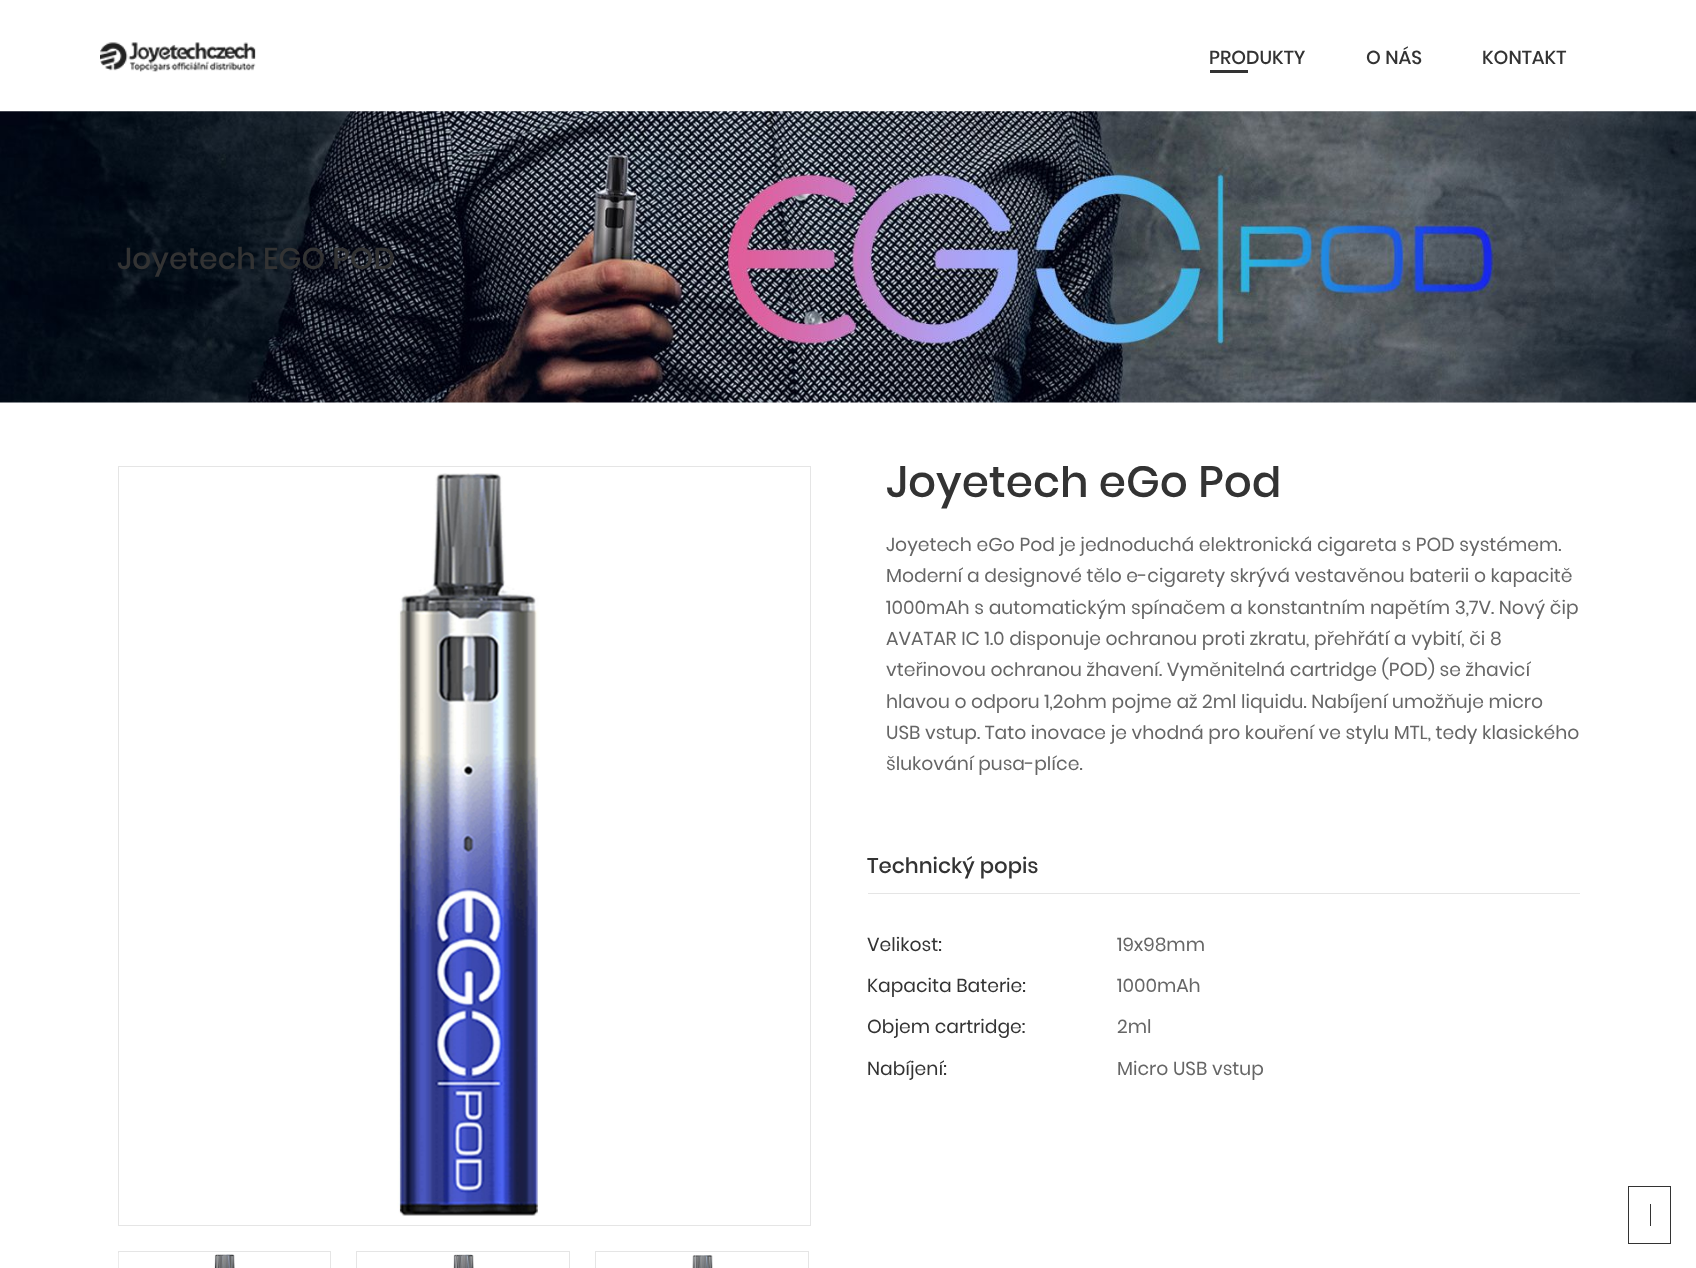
<svg xmlns="http://www.w3.org/2000/svg" width="1696" height="1268" viewBox="0 0 1696 1268">
  <style>
    .t1 { font: 500 18.75px Poppins; fill: #333; }
    .t2 { font: 500 30px Poppins; fill: #333; }
    .t3 { font: 500 43.75px Poppins; fill: #333; }
    .t4 { font: 18.75px Poppins; fill: #666; }
    .t5 { font: 500 21.25px Poppins; fill: #333; }
    .t6 { font: 18.75px Poppins; fill: #333; }
  </style>
  <defs>
    <clipPath id="clip1"><rect x="118" y="466" width="1462" height="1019"/></clipPath>
  </defs>
  <rect width="100%" height="100%" fill="#fff"/>
  <image x="100" y="42" width="156" height="30" href="images/1.png"/>
  <text x="1209" y="64" class="t1">PRODUKTY</text>
  <rect x="1210" y="70" width="38" height="3" fill="#333"/>
  <text x="1366" y="64" class="t1">O NÁS</text>
  <text x="1482" y="64" class="t1">KONTAKT</text>
  <image x="0" y="111" width="1696" height="292" href="images/2.png"/>
  <text x="117" y="269" class="t2">Joyetech EGO POD</text>
  <rect x="118.5" y="466.5" width="692" height="759" fill="none" stroke="#e5e5e5"/>
  <image x="397" y="473" width="143" height="743" href="images/3.png"/>
  <rect x="118.5" y="1251.5" width="212" height="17" fill="none" stroke="#e5e5e5"/>
  <image x="118" y="1253" width="117" height="15" href="images/4.png"/>
  <rect x="356.5" y="1251.5" width="213" height="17" fill="none" stroke="#e5e5e5"/>
  <image x="453" y="1254" width="21" height="14" href="images/5.png"/>
  <rect x="595.5" y="1251.5" width="213" height="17" fill="none" stroke="#e5e5e5"/>
  <image x="692" y="1255" width="21" height="13" href="images/6.png"/>
  <g clip-path="url(#clip1)">
    <text x="886" y="497" class="t3">Joyetech eGo Pod</text>
  </g>
  <text x="886" y="551" class="t4">Joyetech eGo Pod je jednoduchá elektronická cigareta s POD systémem.</text>
  <text x="886" y="582" class="t4">Moderní a designové tělo e-cigarety skrývá vestavěnou baterii o kapacitě</text>
  <text x="886" y="614" class="t4">1000mAh s automatickým spínačem a konstantním napětím 3,7V. Nový čip</text>
  <text x="886" y="645" class="t4">AVATAR IC 1.0 disponuje ochranou proti zkratu, přehřátí a vybití, či 8</text>
  <text x="886" y="676" class="t4">vteřinovou ochranou žhavení. Vyměnitelná cartridge (POD) se žhavicí</text>
  <text x="886" y="708" class="t4">hlavou o odporu 1,2ohm pojme až 2ml liquidu. Nabíjení umožňuje micro</text>
  <text x="886" y="739" class="t4">USB vstup. Tato inovace je vhodná pro kouření ve stylu MTL, tedy klasického</text>
  <text x="886" y="770" class="t4">šlukování pusa-plíce.</text>
  <rect x="868" y="893" width="712" height="1" fill="#e5e5e5"/>
  <text x="867" y="873" class="t5">Technický popis</text>
  <text x="867" y="951" class="t6">Velikost:</text>
  <text x="1117" y="951" class="t4">19x98mm</text>
  <text x="867" y="992" class="t6">Kapacita Baterie:</text>
  <text x="1117" y="992" class="t4">1000mAh</text>
  <text x="867" y="1033" class="t6">Objem cartridge:</text>
  <text x="1117" y="1033" class="t4">2ml</text>
  <text x="867" y="1075" class="t6">Nabíjení:</text>
  <text x="1117" y="1075" class="t4">Micro USB vstup</text>
  <rect x="1628.5" y="1186.5" width="42" height="57" fill="none" stroke="#333"/>
  <rect x="1650" y="1204" width="1" height="22" fill="#333"/>
</svg>
